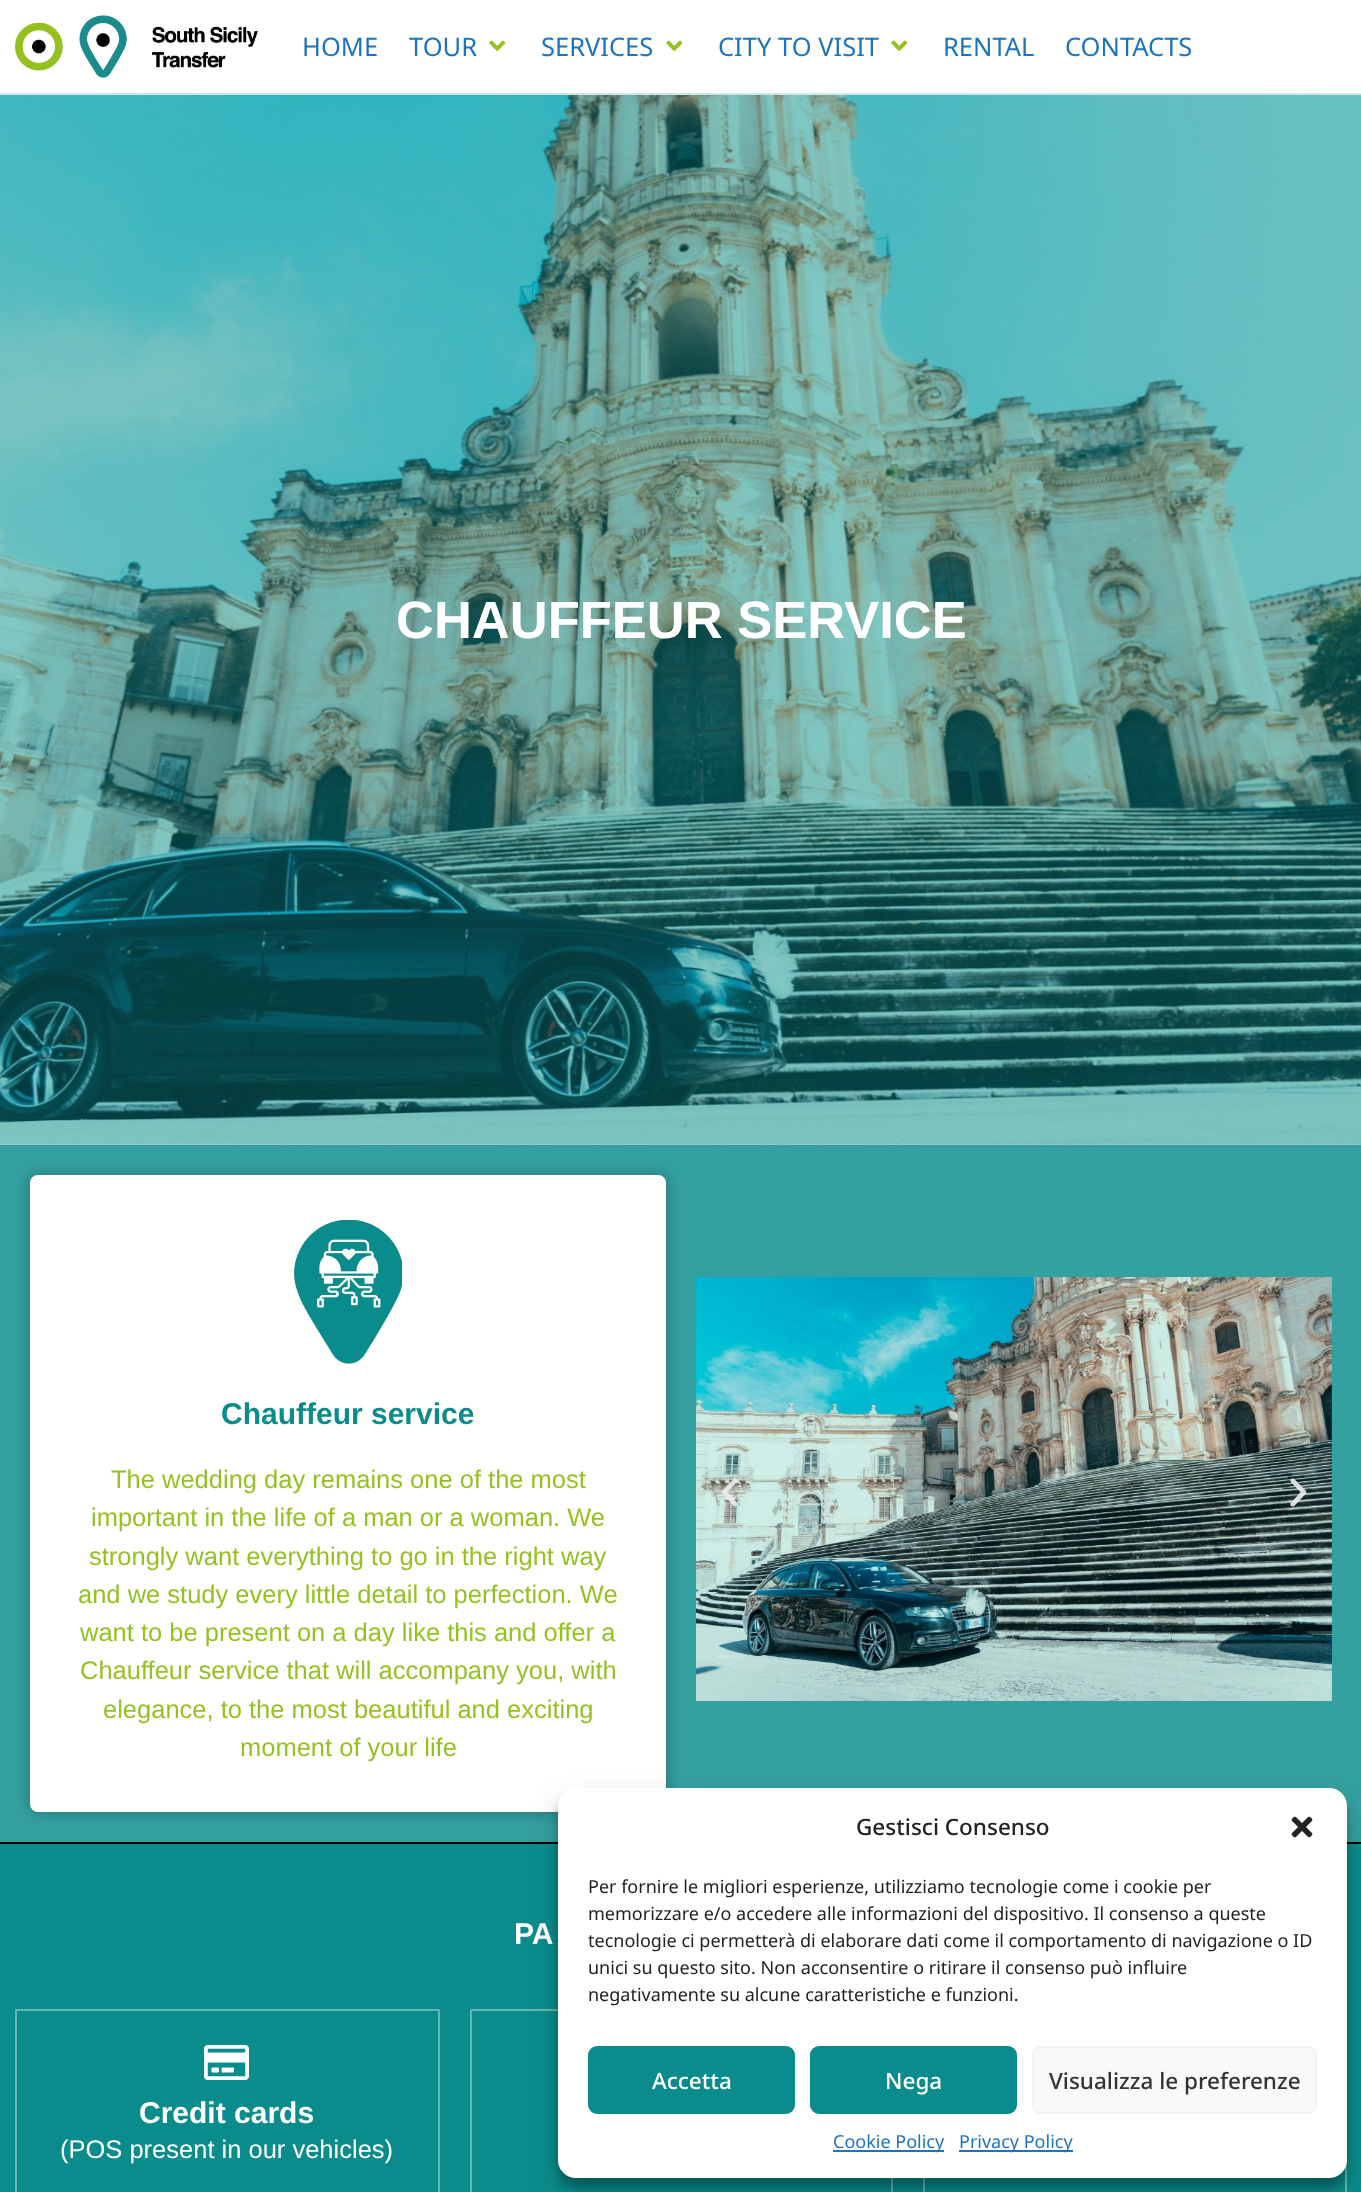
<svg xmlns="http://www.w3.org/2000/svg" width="1361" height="2192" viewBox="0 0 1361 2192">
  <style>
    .t1 { font: 25.5px Noto Sans; fill: #1e73be; }
    .t2 { font: bold 52.5px Liberation Sans; fill: #fff; }
    .t3 { font: bold 30px Liberation Sans; fill: #0b8c8c; }
    .t4 { font: 25.5px Liberation Sans; fill: #95c121; }
    .t5 { font: bold 30px Liberation Sans; fill: #fff; }
    .t6 { font: 25.5px Liberation Sans; fill: #fff; }
    .t7 { font: 500 22.5px Noto Sans; fill: #222; }
    .t8 { font: 18px Noto Sans; fill: #222; }
    .t9 { font: 500 22.5px Noto Sans; fill: #fff; }
    .t10 { font: 500 22.5px Noto Sans; fill: #333; }
    .t11 { font: 18px Noto Sans; fill: #1e73be; }
  </style>
  <rect width="100%" height="100%" fill="#9dd1d1"/>
  <rect x="0" y="0" width="1361" height="93" fill="#fff"/>
  <rect x="0" y="93" width="1361" height="2" fill="#cce7e7"/>
  <image x="15" y="15" width="243" height="63" href="images/1.png"/>
  <text x="302" y="56" class="t1">HOME</text>
  <text x="409" y="56" class="t1">TOUR</text>
  <image x="489" y="40" width="17" height="11" href="images/2.png"/>
  <text x="541" y="56" class="t1">SERVICES</text>
  <image x="666" y="40" width="17" height="11" href="images/2.png"/>
  <text x="718" y="56" class="t1">CITY TO VISIT</text>
  <image x="891" y="40" width="17" height="11" href="images/2.png"/>
  <text x="943" y="56" class="t1">RENTAL</text>
  <text x="1065" y="56" class="t1">CONTACTS</text>
  <image x="0" y="95" width="1361" height="1050" href="images/3.png"/>
  <text x="396" y="638" class="t2">CHAUFFEUR SERVICE</text>
  <rect x="0" y="1145" width="1361" height="697" fill="#35a0a0"/>
  <rect x="30" y="1175" width="636" height="637" rx="8" fill="#0000004d" filter="blur(7.5px)"/>
  <rect x="30" y="1175" width="636" height="637" rx="8" fill="#fff"/>
  <image x="294" y="1220" width="108" height="144" href="images/4.png"/>
  <text x="221" y="1424" class="t3">Chauffeur service</text>
  <text x="111" y="1488" class="t4">The wedding day remains one of the most</text>
  <text x="91" y="1526" class="t4">important in the life of a man or a woman. We</text>
  <text x="89" y="1565" class="t4">strongly want everything to go in the right way</text>
  <text x="78" y="1603" class="t4">and we study every little detail to perfection. We</text>
  <text x="80" y="1641" class="t4">want to be present on a day like this and offer a</text>
  <text x="80" y="1679" class="t4">Chauffeur service that will accompany you, with</text>
  <text x="103" y="1718" class="t4">elegance, to the most beautiful and exciting</text>
  <text x="240" y="1756" class="t4">moment of your life</text>
  <image x="696" y="1277" width="636" height="424" href="images/5.png"/>
  <image x="722" y="1478" width="16" height="29" href="images/6.png"/>
  <image x="1290" y="1478" width="17" height="29" href="images/7.png"/>
  <rect x="0" y="1844" width="1361" height="348" fill="#0b8c8c"/>
  <rect x="0" y="1842" width="1361" height="2" fill="#000"/>
  <text x="514" y="1944" class="t5">PA</text>
  <rect x="16" y="2010" width="423" height="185" rx="0.5" fill="none" stroke="#65b7b7" stroke-width="2"/>
  <image x="204" y="2045" width="45" height="35" href="images/8.png"/>
  <text x="139" y="2123" class="t5">Credit cards</text>
  <text x="60" y="2158" class="t6">(POS present in our vehicles)</text>
  <rect x="471" y="2010" width="421" height="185" rx="0.5" fill="none" stroke="#65b7b7" stroke-width="2"/>
  <rect x="924" y="2010" width="422" height="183" fill="none" stroke="#65b7b7" stroke-width="2"/>
  <rect x="558" y="1797" width="789" height="390" rx="18" fill="#0000003b" filter="blur(4.5px)"/>
  <rect x="558" y="1803" width="789" height="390" rx="18" fill="#00000030" filter="blur(15px)"/>
  <rect x="558" y="1788" width="789" height="390" rx="18" fill="#fff"/>
  <text x="856" y="1835" class="t7">Gestisci Consenso</text>
  <image x="1291" y="1816" width="22" height="22" href="images/9.png"/>
  <text x="588" y="1893" class="t8">Per fornire le migliori esperienze, utilizziamo tecnologie come i cookie per</text>
  <text x="588" y="1920" class="t8">memorizzare e/o accedere alle informazioni del dispositivo. Il consenso a queste</text>
  <text x="588" y="1947" class="t8">tecnologie ci permetterà di elaborare dati come il comportamento di navigazione o ID</text>
  <text x="588" y="1974" class="t8">unici su questo sito. Non acconsentire o ritirare il consenso può influire</text>
  <text x="588" y="2001" class="t8">negativamente su alcune caratteristiche e funzioni.</text>
  <rect x="589" y="2047" width="205" height="66" rx="8" fill="#0b8c8c" stroke="#0b8c8c" stroke-width="2"/>
  <text x="652" y="2089" class="t9">Accetta</text>
  <rect x="811" y="2047" width="205" height="66" rx="8" fill="#0b8c8c" stroke="#0b8c8c" stroke-width="2"/>
  <text x="885" y="2089" class="t9">Nega</text>
  <rect x="1033" y="2047" width="283" height="66" rx="8" fill="#f9f9f9" stroke="#f2f2f2" stroke-width="2"/>
  <text x="1049" y="2089" class="t10">Visualizza le preferenze</text>
  <rect x="833" y="2150" width="111" height="2" fill="#1e73be"/>
  <text x="833" y="2148" class="t11">Cookie Policy</text>
  <rect x="959" y="2150" width="114" height="2" fill="#1e73be"/>
  <text x="959" y="2148" class="t11">Privacy Policy</text>
</svg>
